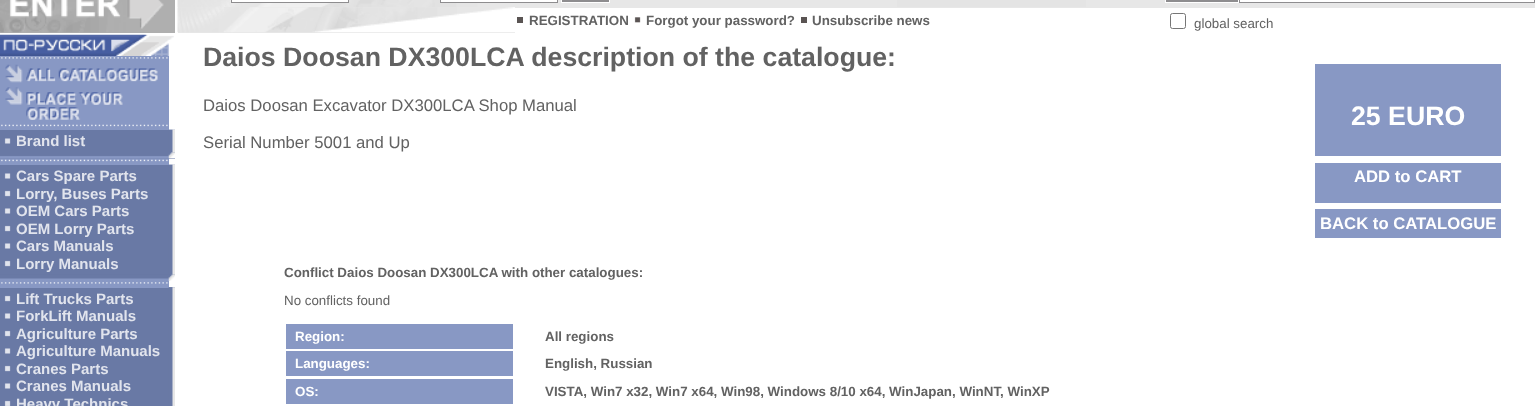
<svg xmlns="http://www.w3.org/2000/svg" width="1535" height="406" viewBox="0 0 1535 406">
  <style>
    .t1 { font: bold 13.35px Liberation Sans; fill: #626262; }
    .t2 { font: 13.35px Liberation Sans; fill: #626262; }
    .t3 { font: bold 15px Liberation Sans; fill: #e1e4ed; }
    .t4 { font: bold 26.7px Liberation Sans; fill: #626262; }
    .t5 { font: 16.7px Liberation Sans; fill: #626262; }
    .t6 { font: bold 26.7px Liberation Sans; fill: #fff; }
    .t7 { font: bold 16.7px Liberation Sans; fill: #fff; }
    .t8 { font: bold 13.35px Liberation Sans; fill: #fff; }
  </style>
  <rect width="100%" height="100%" fill="#fff"/>
  <rect x="178" y="32" width="337" height="1" fill="#e7e7e7"/>
  <rect x="178" y="7" width="908" height="1" fill="#e7e7e7"/>
  <image x="177" y="7" width="338" height="26" href="images/1.png"/>
  <rect x="517" y="17" width="6" height="6" fill="#5a5453"/>
  <text x="529" y="25" class="t1">REGISTRATION</text>
  <image x="634" y="17" width="7" height="6" href="images/2.png"/>
  <text x="646" y="25" class="t1">Forgot your password?</text>
  <rect x="801" y="17" width="6" height="6" fill="#5a5453"/>
  <text x="812" y="25" class="t1">Unsubscribe news</text>
  <rect x="0" y="0" width="175" height="33" fill="#afafaf"/>
  <image x="0" y="0" width="164" height="33" href="images/3.png"/>
  <image x="177" y="0" width="909" height="7" href="images/4.png"/>
  <rect x="231.5" y="-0.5" width="117" height="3" fill="#fff" stroke="#8e8d8f"/>
  <rect x="440.5" y="-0.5" width="117" height="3" fill="#fff" stroke="#8e8d8f"/>
  <rect x="561.5" y="-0.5" width="48" height="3" fill="#8e8d8f" stroke="#fff"/>
  <rect x="1086" y="0" width="79" height="8" fill="#e7e7e7"/>
  <rect x="1165" y="3" width="370" height="5" fill="#e7e7e7"/>
  <rect x="1165.5" y="-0.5" width="73" height="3" fill="#8e8d8f" stroke="#fff"/>
  <rect x="1239.5" y="-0.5" width="295" height="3" fill="none" stroke="#8e8d8f"/>
  <rect x="1170.5" y="13.5" width="15" height="15" rx="2" fill="none" stroke="#767676"/>
  <text x="1194" y="28" class="t2">global search</text>
  <image x="0" y="34" width="174" height="22" href="images/5.png"/>
  <rect x="0" y="56" width="169" height="74" fill="#8898c4"/>
  <image x="1" y="57" width="167" height="2" href="images/6.png"/>
  <image x="5" y="64" width="153" height="19" href="images/7.png"/>
  <image x="5" y="87" width="118" height="33" href="images/8.png"/>
  <image x="1" y="124" width="167" height="3" href="images/9.png"/>
  <rect x="0" y="130" width="175" height="23" fill="#6979a5"/>
  <image x="4" y="138" width="7" height="6" href="images/10.png"/>
  <text x="16" y="146" class="t3">Brand list</text>
  <image x="168" y="129" width="7" height="24" href="images/11.png"/>
  <rect x="0" y="158" width="175" height="1" fill="#6979a5"/>
  <image x="0" y="152" width="175" height="7" href="images/12.png"/>
  <rect x="0" y="159" width="169" height="6" fill="#8898c4"/>
  <image x="0" y="158" width="169" height="4" href="images/13.png"/>
  <rect x="0" y="165" width="175" height="110" fill="#6979a5"/>
  <image x="4" y="173" width="7" height="6" href="images/10.png"/>
  <text x="16" y="181" class="t3">Cars Spare Parts</text>
  <image x="4" y="190" width="7" height="7" href="images/14.png"/>
  <text x="16" y="199" class="t3">Lorry, Buses Parts</text>
  <image x="4" y="208" width="7" height="6" href="images/10.png"/>
  <text x="16" y="216" class="t3">OEM Cars Parts</text>
  <image x="4" y="225" width="7" height="7" href="images/14.png"/>
  <text x="16" y="234" class="t3">OEM Lorry Parts</text>
  <image x="4" y="243" width="7" height="6" href="images/10.png"/>
  <text x="16" y="251" class="t3">Cars Manuals</text>
  <image x="4" y="260" width="7" height="7" href="images/14.png"/>
  <text x="16" y="269" class="t3">Lorry Manuals</text>
  <image x="168" y="164" width="7" height="111" href="images/15.png"/>
  <image x="0" y="274" width="175" height="7" href="images/16.png"/>
  <rect x="0" y="281" width="169" height="7" fill="#8898c4"/>
  <image x="1" y="282" width="167" height="2" href="images/6.png"/>
  <rect x="0" y="288" width="169" height="118" fill="#6979a5"/>
  <image x="4" y="295" width="7" height="7" href="images/14.png"/>
  <text x="16" y="304" class="t3">Lift Trucks Parts</text>
  <image x="4" y="313" width="7" height="6" href="images/10.png"/>
  <text x="16" y="321" class="t3">ForkLift Manuals</text>
  <image x="4" y="330" width="7" height="7" href="images/14.png"/>
  <text x="16" y="339" class="t3">Agriculture Parts</text>
  <image x="4" y="348" width="7" height="6" href="images/10.png"/>
  <text x="16" y="356" class="t3">Agriculture Manuals</text>
  <image x="4" y="365" width="7" height="7" href="images/14.png"/>
  <text x="16" y="374" class="t3">Cranes Parts</text>
  <image x="4" y="383" width="7" height="6" href="images/10.png"/>
  <text x="16" y="391" class="t3">Cranes Manuals</text>
  <image x="4" y="400" width="7" height="6" href="images/17.png"/>
  <text x="16" y="409" class="t3">Heavy Technics</text>
  <image x="168" y="287" width="7" height="119" href="images/18.png"/>
  <text x="203" y="66" class="t4">Daios Doosan DX300LCA description of the catalogue:</text>
  <text x="203" y="111" class="t5">Daios Doosan Excavator DX300LCA Shop Manual</text>
  <text x="203" y="148" class="t5">Serial Number 5001 and Up</text>
  <rect x="1315" y="64" width="186" height="92" fill="#8898c4"/>
  <text x="1351" y="125" class="t6">25 EURO</text>
  <rect x="1315" y="163" width="186" height="40" fill="#8898c4"/>
  <text x="1354" y="182" class="t7">ADD to CART</text>
  <rect x="1315" y="209" width="186" height="29" fill="#8898c4"/>
  <text x="1320" y="229" class="t7">BACK to CATALOGUE</text>
  <text x="284" y="277" class="t1">Conflict Daios Doosan DX300LCA with other catalogues:</text>
  <text x="284" y="305" class="t2">No conflicts found</text>
  <rect x="286" y="324" width="227" height="25" fill="#8898c4"/>
  <text x="295" y="341" class="t8">Region:</text>
  <text x="545" y="341" class="t1">All regions</text>
  <rect x="286" y="351" width="227" height="25" fill="#8898c4"/>
  <text x="295" y="368" class="t8">Languages:</text>
  <text x="545" y="368" class="t1">English, Russian</text>
  <rect x="286" y="379" width="227" height="25" fill="#8898c4"/>
  <text x="295" y="396" class="t8">OS:</text>
  <text x="545" y="396" class="t1">VISTA, Win7 x32, Win7 x64, Win98, Windows 8/10 x64, WinJapan, WinNT, WinXP</text>
</svg>
